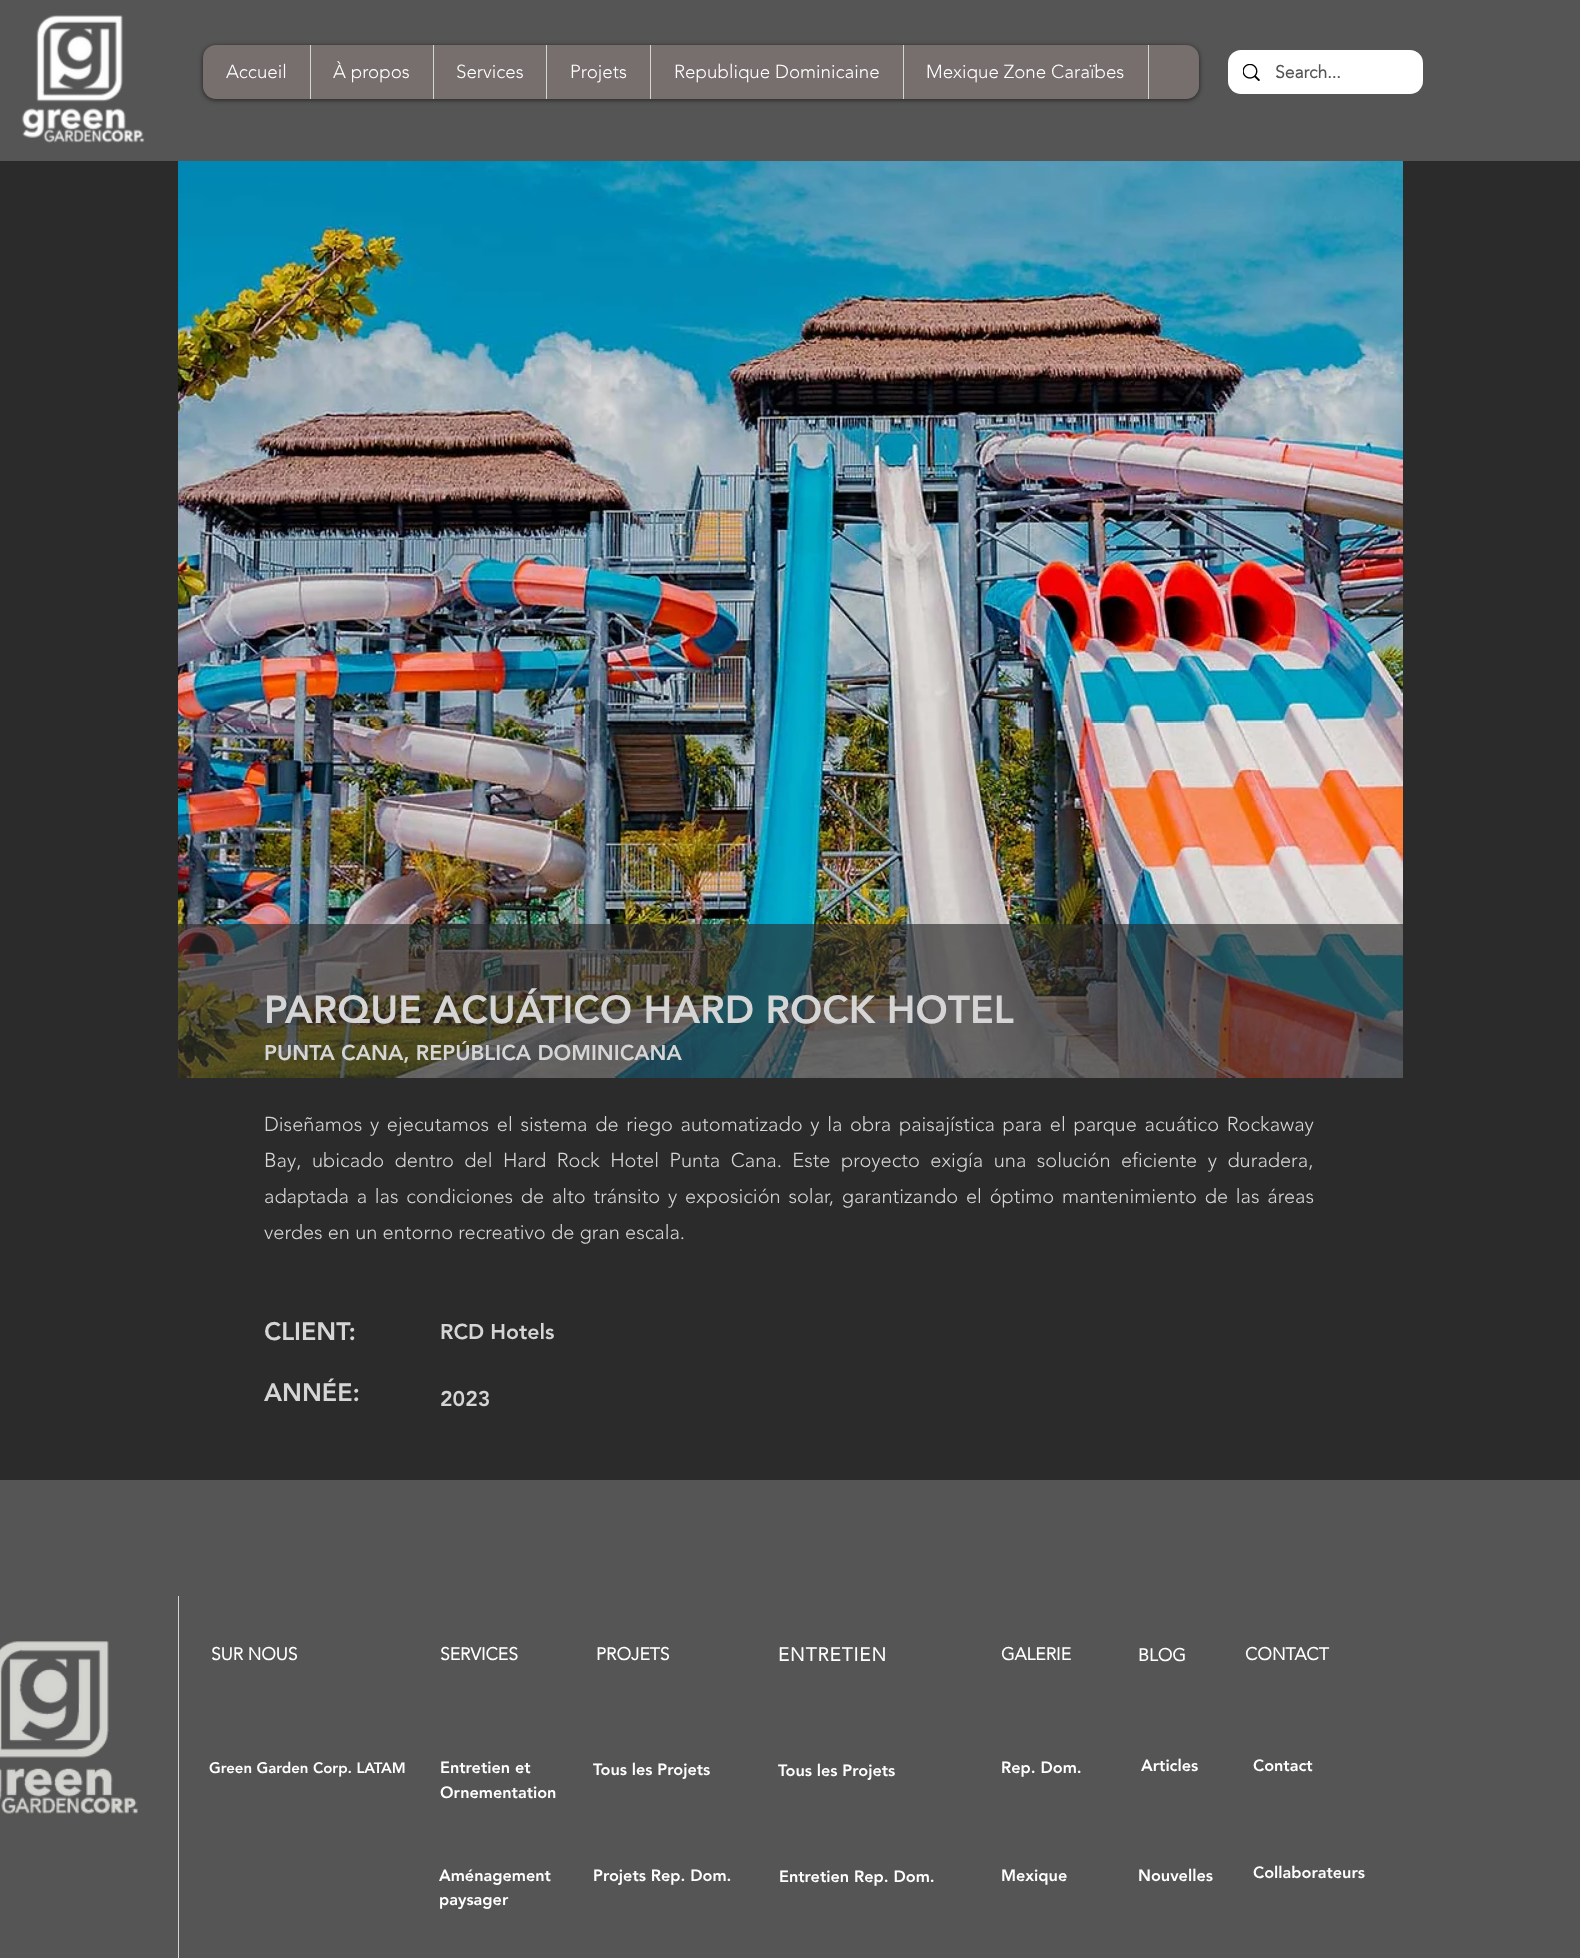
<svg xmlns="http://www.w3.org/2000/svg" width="1580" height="1958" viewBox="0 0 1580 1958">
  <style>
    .t1 { font: 300 18.75px 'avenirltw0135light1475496'; fill: #fff; }
    .t2 { font: bold 17.5px 'avenirltw0135light1475496'; fill: #555; }
    .t3 { font: 900 38.75px 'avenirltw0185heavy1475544'; fill: #d5d5d5; }
    .t4 { font: 900 21.25px 'avenirltw0185heavy1475544'; fill: #d5d5d5; }
    .t5 { font: 300 20px 'avenirltw0135light1475496'; fill: #d5d5d5; }
    .t6 { font: 900 25px 'avenirltw0185heavy1475544'; fill: #d5d5d5; }
    .t7 { font: bold 17.5px 'avenirltw0135light1475496'; fill: #fff; }
    .t8 { font: bold 18.75px 'avenirltw0135light1475496'; letter-spacing: 1px; fill: #fff; }
    .t9 { font: 900 15px 'avenirltw0185heavy1475544'; fill: #fff; }
    .t10 { font: 900 16.25px 'avenirltw0185heavy1475544'; fill: #fff; }
  </style>
  <rect width="100%" height="100%" fill="#2b2b2b"/>
  <rect x="0" y="0" width="1580" height="161" fill="#555"/>
  <image x="21" y="15" width="124" height="128" href="images/1.png"/>
  <rect x="203" y="46" width="996" height="54" rx="13" fill="#00000099" filter="blur(2.5px)"/>
  <rect x="203" y="45" width="996" height="54" rx="13" fill="#776f6d"/>
  <text x="226" y="78" class="t1">Accueil</text>
  <rect x="310" y="45" width="1" height="54" fill="#d5d5d5"/>
  <text x="333" y="78" class="t1">À propos</text>
  <rect x="433" y="45" width="1" height="54" fill="#d5d5d5"/>
  <text x="456" y="78" class="t1">Services</text>
  <rect x="546" y="45" width="1" height="54" fill="#d5d5d5"/>
  <text x="570" y="78" class="t1">Projets</text>
  <rect x="650" y="45" width="1" height="54" fill="#d5d5d5"/>
  <text x="674" y="78" class="t1">Republique Dominicaine</text>
  <rect x="903" y="45" width="1" height="54" fill="#d5d5d5"/>
  <text x="926" y="78" class="t1">Mexique Zone Caraïbes</text>
  <rect x="1148" y="45" width="1" height="54" fill="#d5d5d5"/>
  <rect x="1228" y="50" width="195" height="44" rx="13" fill="#fff"/>
  <image x="1243" y="64" width="17" height="17" href="images/2.png"/>
  <text x="1275" y="78" class="t2">Search...</text>
  <image x="178" y="161" width="1225" height="917" href="images/3.png"/>
  <rect x="178" y="924" width="1225" height="154" fill="#2b2b2ba6"/>
  <text x="264" y="1023" class="t3">PARQUE ACUÁTICO HARD ROCK HOTEL</text>
  <text x="264" y="1060" class="t4">PUNTA CANA, REPÚBLICA DOMINICANA</text>
  <text x="264" y="1131" word-spacing="2.5" class="t5">Diseñamos y ejecutamos el sistema de riego automatizado y la obra paisajística para el parque acuático Rockaway</text>
  <text x="264" y="1167" word-spacing="5.25" class="t5">Bay, ubicado dentro del Hard Rock Hotel Punta Cana. Este proyecto exigía una solución eficiente y duradera,</text>
  <text x="264" y="1203" word-spacing="2.6" class="t5">adaptada a las condiciones de alto tránsito y exposición solar, garantizando el óptimo mantenimiento de las áreas</text>
  <text x="264" y="1239" class="t5">verdes en un entorno recreativo de gran escala.</text>
  <text x="264" y="1340" class="t6">CLIENT:</text>
  <text x="440" y="1339" class="t4">RCD Hotels</text>
  <text x="264" y="1401" class="t6">ANNÉE:</text>
  <text x="440" y="1406" class="t4">2023</text>
  <rect x="0" y="1480" width="1580" height="478" fill="#555"/>
  <image x="0" y="1641" width="138" height="173" href="images/4.png"/>
  <rect x="178" y="1596" width="1" height="362" fill="#d5d5d5"/>
  <text x="211" y="1660" class="t7">SUR NOUS</text>
  <text x="440" y="1660" class="t7">SERVICES</text>
  <text x="596" y="1660" class="t7">PROJETS</text>
  <text x="778" y="1661" class="t8">ENTRETIEN</text>
  <text x="1001" y="1660" class="t7">GALERIE</text>
  <text x="1138" y="1661" class="t7">BLOG</text>
  <text x="1245" y="1660" class="t7">CONTACT</text>
  <text x="209" y="1773" class="t9">Green Garden Corp. LATAM</text>
  <text x="440" y="1773" class="t10">Entretien et</text>
  <text x="440" y="1798" class="t10">Ornementation</text>
  <text x="593" y="1775" class="t10">Tous les Projets</text>
  <text x="778" y="1776" class="t10">Tous les Projets</text>
  <text x="1001" y="1773" class="t10">Rep. Dom.</text>
  <text x="1141" y="1771" class="t10">Articles</text>
  <text x="1253" y="1771" class="t10">Contact</text>
  <text x="439" y="1881" class="t10">Aménagement</text>
  <text x="439" y="1905" class="t10">paysager</text>
  <text x="593" y="1881" class="t10">Projets Rep. Dom.</text>
  <text x="779" y="1882" class="t10">Entretien Rep. Dom.</text>
  <text x="1001" y="1881" class="t10">Mexique</text>
  <text x="1138" y="1881" class="t10">Nouvelles</text>
  <text x="1253" y="1878" class="t10">Collaborateurs</text>
</svg>
